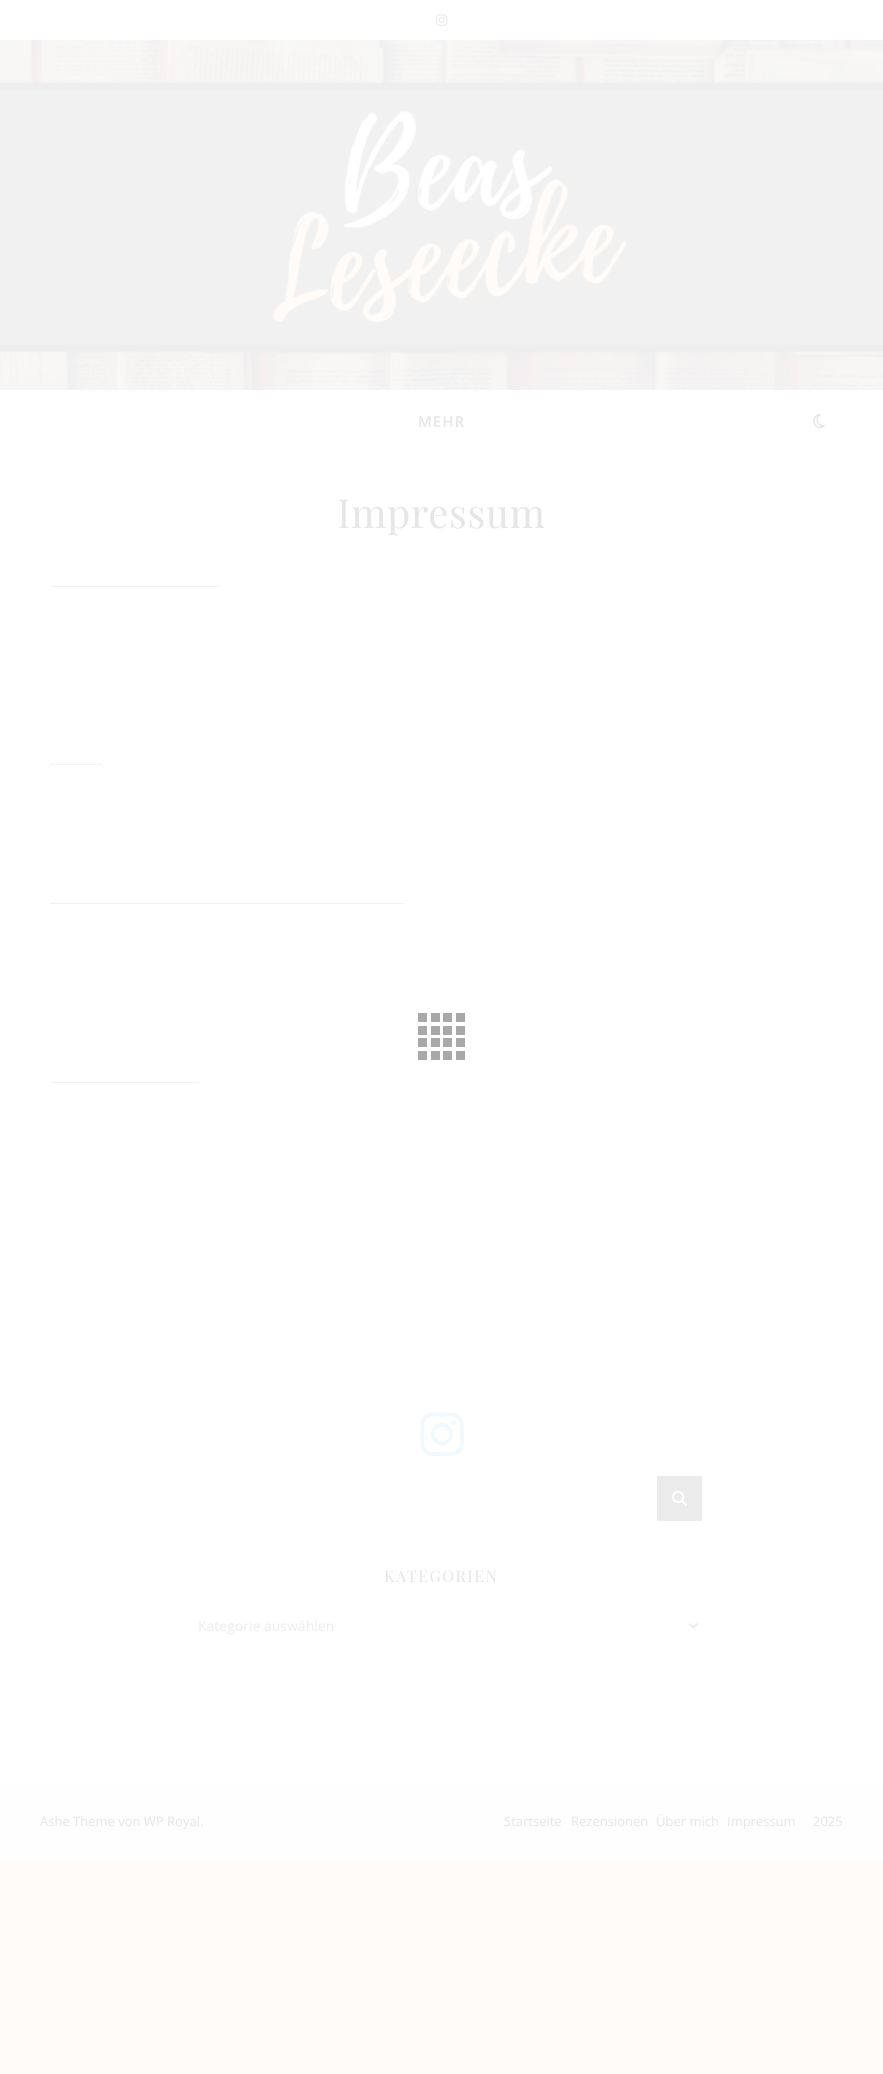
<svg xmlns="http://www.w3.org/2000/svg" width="883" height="2074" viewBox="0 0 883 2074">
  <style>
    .t1 { font: 600 15px Open Sans; letter-spacing: 1px; fill: #e6e6e6; }
    .t2 { font: 40px Playfair Display; letter-spacing: 0.5px; fill: #e6e6e6; }
    .t3 { font: 16px Playfair Display; letter-spacing: 1.5px; fill: #e6e6e6; }
    .t4 { font: 14px Open Sans; fill: #ededed; }
    .t5 { font: 13px Open Sans; fill: #e6e6e6; }
  </style>
  <rect width="100%" height="100%" fill="#fffbf8"/>
  <rect x="0" y="0" width="883" height="40" fill="#fff"/>
  <image x="436" y="14" width="12" height="12" href="images/1.png"/>
  <image x="0" y="40" width="883" height="350" href="images/2.png"/>
  <rect x="0" y="390" width="883" height="1394" fill="#fff"/>
  <text x="418" y="427" class="t1">MEHR</text>
  <image x="813" y="414" width="12" height="14" href="images/3.png"/>
  <text x="337" y="528" class="t2">Impressum</text>
  <rect x="50" y="586" width="170" height="1" fill="#f2f2f2"/>
  <rect x="50" y="764" width="52" height="1" fill="#f2f2f2"/>
  <rect x="50" y="903" width="354" height="1" fill="#f2f2f2"/>
  <rect x="50" y="1082" width="149" height="1" fill="#f2f2f2"/>
  <image x="420" y="1412" width="44" height="45" href="images/4.png"/>
  <rect x="657" y="1476" width="45" height="45" fill="#ebebeb"/>
  <image x="672" y="1490" width="15" height="16" href="images/5.png"/>
  <text x="384" y="1582" class="t3">KATEGORIEN</text>
  <path d="M689.5 1623.5L693.5 1627.5L697.5 1623.5" fill="none" stroke="#ededed" stroke-width="2"/>
  <text x="198" y="1631" class="t4">Kategorie auswählen</text>
  <rect x="0" y="1784" width="883" height="75" fill="#fefefe"/>
  <text x="40" y="1826" class="t5">Ashe Theme von WP Royal.</text>
  <text x="504" y="1826" class="t5">Startseite</text>
  <text x="571" y="1826" class="t5">Rezensionen</text>
  <text x="656" y="1826" class="t5">Über mich</text>
  <text x="727" y="1826" class="t5">Impressum</text>
  <text x="813" y="1826" class="t5">2025</text>
  <rect x="418" y="1013" width="9" height="9" fill="#a8a8a8"/>
  <rect x="431" y="1013" width="9" height="9" fill="#a8a8a8"/>
  <rect x="443" y="1013" width="9" height="9" fill="#a8a8a8"/>
  <rect x="456" y="1013" width="9" height="9" fill="#a8a8a8"/>
  <rect x="418" y="1026" width="9" height="9" fill="#a8a8a8"/>
  <rect x="431" y="1026" width="9" height="9" fill="#a8a8a8"/>
  <rect x="443" y="1026" width="9" height="9" fill="#a8a8a8"/>
  <rect x="456" y="1026" width="9" height="9" fill="#a8a8a8"/>
  <rect x="418" y="1038" width="9" height="9" fill="#a8a8a8"/>
  <rect x="431" y="1038" width="9" height="9" fill="#a8a8a8"/>
  <rect x="443" y="1038" width="9" height="9" fill="#a8a8a8"/>
  <rect x="456" y="1038" width="9" height="9" fill="#a8a8a8"/>
  <rect x="418" y="1051" width="9" height="9" fill="#a8a8a8"/>
  <rect x="431" y="1051" width="9" height="9" fill="#a8a8a8"/>
  <rect x="443" y="1051" width="9" height="9" fill="#a8a8a8"/>
  <rect x="456" y="1051" width="9" height="9" fill="#a8a8a8"/>
</svg>
